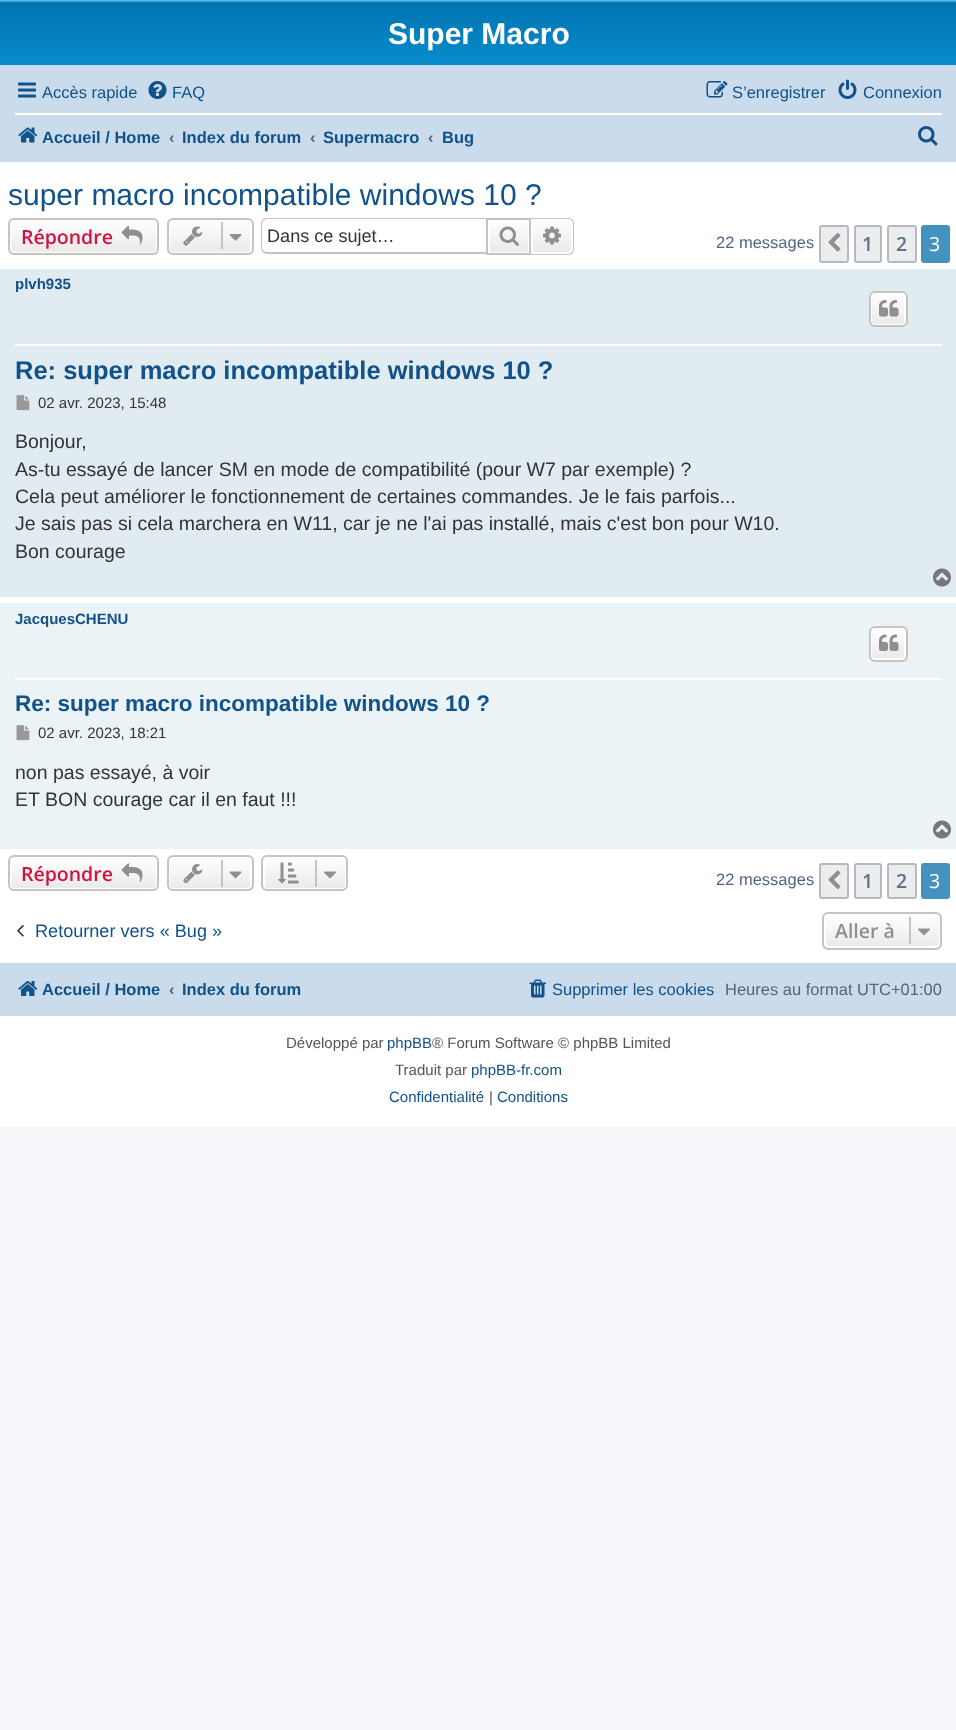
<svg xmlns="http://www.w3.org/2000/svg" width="956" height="1730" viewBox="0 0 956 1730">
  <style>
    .t1 { font: bold 30px Liberation Sans; fill: #fff; }
    .t2 { font: 16.5px Liberation Sans; fill: #105289; }
    .t3 { font: bold 16.5px Liberation Sans; fill: #105289; }
    .t4 { font: bold 16.5px Liberation Sans; fill: #536482; }
    .t5 { font: 30px Liberation Sans; fill: #105289; }
    .t6 { font: 600 19.5px Open Sans; fill: #d31141; }
    .t7 { font: 18.1px Liberation Sans; fill: #333; }
    .t8 { font: 16.5px Liberation Sans; fill: #536482; }
    .t9 { font: 600 19.5px Open Sans; fill: #5c758c; }
    .t10 { font: 19.5px Open Sans; fill: #fff; }
    .t11 { font: bold 15px Liberation Sans; fill: #105289; }
    .t12 { font: bold 25.5px Liberation Sans; fill: #105289; }
    .t13 { font: 15px Liberation Sans; fill: #333; }
    .t14 { font: 19.5px Liberation Sans; fill: #333; }
    .t15 { font: bold 22.5px Liberation Sans; fill: #105289; }
    .t16 { font: 18.1px Liberation Sans; fill: #105289; }
    .t17 { font: 600 19.5px Open Sans; fill: #8f8f8f; }
    .t18 { font: 15px Liberation Sans; fill: #555; }
    .t19 { font: 15px Liberation Sans; fill: #105289; }
  </style>
  <defs>
    <linearGradient id="g1" gradientUnits="userSpaceOnUse" x1="479" y1="0" x2="479" y2="138"><stop offset="0" stop-color="#6aceff"/><stop offset="0.02" stop-color="#0076b1"/><stop offset="1" stop-color="#12a3eb"/></linearGradient>
    <clipPath id="clip1"><rect x="443" y="119" width="31" height="36"/></clipPath>
    <clipPath id="clip2"><rect x="8" y="218" width="151" height="37" rx="6"/></clipPath>
    <linearGradient id="g2" gradientUnits="userSpaceOnUse" x1="83" y1="219" x2="83" y2="254"><stop offset="0" stop-color="#fff"/><stop offset="1" stop-color="#e9e9e9"/></linearGradient>
    <clipPath id="clip3"><rect x="167" y="218" width="87" height="37" rx="6"/></clipPath>
    <linearGradient id="g3" gradientUnits="userSpaceOnUse" x1="210" y1="219" x2="210" y2="254"><stop offset="0" stop-color="#fff"/><stop offset="1" stop-color="#e9e9e9"/></linearGradient>
    <linearGradient id="g4" gradientUnits="userSpaceOnUse" x1="509" y1="219" x2="509" y2="254"><stop offset="0" stop-color="#fff"/><stop offset="1" stop-color="#e9e9e9"/></linearGradient>
    <linearGradient id="g5" gradientUnits="userSpaceOnUse" x1="552" y1="219" x2="552" y2="254"><stop offset="0" stop-color="#fff"/><stop offset="1" stop-color="#e9e9e9"/></linearGradient>
    <clipPath id="clip4"><rect x="869" y="291" width="39" height="36" rx="6"/></clipPath>
    <linearGradient id="g6" gradientUnits="userSpaceOnUse" x1="888" y1="293" x2="888" y2="326"><stop offset="0" stop-color="#fff"/><stop offset="1" stop-color="#e9e9e9"/></linearGradient>
    <clipPath id="clip5"><rect x="869" y="626" width="39" height="36" rx="6"/></clipPath>
    <linearGradient id="g7" gradientUnits="userSpaceOnUse" x1="888" y1="627" x2="888" y2="660"><stop offset="0" stop-color="#fff"/><stop offset="1" stop-color="#e9e9e9"/></linearGradient>
    <clipPath id="clip6"><rect x="8" y="855" width="151" height="36" rx="6"/></clipPath>
    <linearGradient id="g8" gradientUnits="userSpaceOnUse" x1="83" y1="857" x2="83" y2="890"><stop offset="0" stop-color="#fff"/><stop offset="1" stop-color="#e9e9e9"/></linearGradient>
    <clipPath id="clip7"><rect x="167" y="855" width="87" height="36" rx="6"/></clipPath>
    <linearGradient id="g9" gradientUnits="userSpaceOnUse" x1="210" y1="857" x2="210" y2="890"><stop offset="0" stop-color="#fff"/><stop offset="1" stop-color="#e9e9e9"/></linearGradient>
    <clipPath id="clip8"><rect x="261" y="855" width="87" height="36" rx="6"/></clipPath>
    <linearGradient id="g10" gradientUnits="userSpaceOnUse" x1="305" y1="857" x2="305" y2="890"><stop offset="0" stop-color="#fff"/><stop offset="1" stop-color="#e9e9e9"/></linearGradient>
    <clipPath id="clip9"><rect x="822" y="912" width="120" height="38" rx="6"/></clipPath>
    <linearGradient id="g11" gradientUnits="userSpaceOnUse" x1="882" y1="914" x2="882" y2="948"><stop offset="0" stop-color="#fff"/><stop offset="1" stop-color="#e9e9e9"/></linearGradient>
  </defs>
  <rect width="100%" height="100%" fill="#f5f7fa"/>
  <rect x="0" y="162" width="956" height="965" fill="#fff"/>
  <rect x="0" y="0" width="956" height="65" fill="url(#g1)"/>
  <text x="388" y="44" class="t1">Super Macro</text>
  <rect x="0" y="65" width="956" height="97" fill="#cadceb"/>
  <image x="18" y="82" width="18" height="16" href="images/1.png"/>
  <text x="42" y="98" class="t2">Accès rapide</text>
  <image x="148" y="81" width="19" height="18" href="images/2.png"/>
  <text x="172" y="98" class="t2">FAQ</text>
  <image x="706" y="81" width="22" height="17" href="images/3.png"/>
  <text x="732" y="98" class="t2">S’enregistrer</text>
  <image x="838" y="79" width="19" height="20" href="images/4.png"/>
  <text x="863" y="98" class="t2">Connexion</text>
  <rect x="15" y="113" width="927" height="2" fill="#fff"/>
  <image x="18" y="127" width="20" height="16" href="images/5.png"/>
  <text x="42" y="143" class="t3">Accueil / Home</text>
  <text x="169" y="143" class="t4">‹</text>
  <text x="182" y="143" class="t3">Index du forum</text>
  <text x="310" y="143" class="t4">‹</text>
  <text x="323" y="143" class="t3">Supermacro</text>
  <text x="428" y="143" class="t4">‹</text>
  <g clip-path="url(#clip1)">
    <text x="442" y="143" class="t3">Bug</text>
  </g>
  <image x="918" y="126" width="20" height="20" href="images/6.png"/>
  <text x="8" y="205" class="t5">super macro incompatible windows 10 ?</text>
  <g clip-path="url(#clip2)">
    <rect x="8" y="219" width="151" height="35" fill="url(#g2)"/>
  </g>
  <rect x="10" y="220" width="147" height="33" rx="4" fill="none" stroke="#fff" stroke-width="2"/>
  <rect x="9" y="219" width="149" height="35" rx="5" fill="none" stroke="#c7c3bf" stroke-width="2"/>
  <text x="21" y="244" class="t6">Répondre</text>
  <image x="121" y="225" width="22" height="20" href="images/7.png"/>
  <g clip-path="url(#clip3)">
    <rect x="167" y="219" width="87" height="35" fill="url(#g3)"/>
  </g>
  <rect x="169" y="220" width="82" height="33" rx="4" fill="none" stroke="#fff" stroke-width="2"/>
  <rect x="168" y="219" width="85" height="35" rx="5" fill="none" stroke="#c7c3bf" stroke-width="2"/>
  <image x="183" y="226" width="20" height="20" href="images/8.png"/>
  <rect x="221" y="222" width="2" height="27" fill="#c7c3bf"/>
  <image x="229" y="234" width="13" height="7" href="images/9.png"/>
  <path d="M267 218H486V254H267C264 254 261 251 261 248V224C261 220 264 218 267 218ZM267 219H486V252H267C265 252 262 250 262 248V224C262 221 265 219 267 219Z" fill="#c7c3bf" fill-rule="evenodd"/>
  <text x="267" y="242" class="t7">Dans ce sujet…</text>
  <rect x="490" y="223" width="38" height="29" fill="url(#g4)"/>
  <rect x="487" y="219" width="43" height="35" fill="none" stroke="#c7c3bf" stroke-width="2"/>
  <image x="499" y="226" width="20" height="20" href="images/10.png"/>
  <path d="M532 220H568C570 220 572 222 572 224V249C572 251 570 253 568 253H532Z" fill="url(#g5)" stroke="#fff" stroke-width="2"/>
  <path d="M531 218H568C572 218 574 220 574 224V249C574 252 572 255 568 255H531ZM531 219H568C571 219 573 221 573 224V249C573 251 571 254 568 254H531Z" fill="#c7c3bf" fill-rule="evenodd"/>
  <image x="543" y="226" width="18" height="19" href="images/11.png"/>
  <text x="716" y="248" class="t8">22 messages</text>
  <rect x="820" y="226" width="28" height="36" rx="2" fill="#ecedee" stroke="#b4bac0" stroke-width="2"/>
  <image x="828" y="232" width="13" height="20" href="images/12.png"/>
  <rect x="855" y="226" width="26" height="36" rx="2" fill="#ecedee" stroke="#b4bac0" stroke-width="2"/>
  <text x="862" y="251" class="t9">1</text>
  <rect x="888" y="226" width="28" height="36" rx="2" fill="#ecedee" stroke="#b4bac0" stroke-width="2"/>
  <text x="896" y="251" class="t9">2</text>
  <rect x="922" y="226" width="27" height="36" rx="2" fill="#4692bf" stroke="#4692bf" stroke-width="2"/>
  <text x="929" y="251" class="t10">3</text>
  <rect x="0" y="269" width="956" height="328" fill="#e1ebf2"/>
  <rect x="15" y="344" width="927" height="2" fill="#fff"/>
  <text x="15" y="289" class="t11">plvh935</text>
  <g clip-path="url(#clip4)">
    <rect x="869" y="293" width="39" height="33" fill="url(#g6)"/>
  </g>
  <rect x="871" y="294" width="34" height="31" rx="4" fill="none" stroke="#fff" stroke-width="2"/>
  <rect x="870" y="292" width="37" height="34" rx="5" fill="none" stroke="#c7c3bf" stroke-width="2"/>
  <image x="879" y="300" width="20" height="17" href="images/13.png"/>
  <text x="15" y="379" class="t12">Re: super macro incompatible windows 10 ?</text>
  <image x="16" y="395" width="14" height="16" href="images/14.png"/>
  <text x="38" y="408" class="t13">02 avr. 2023, 15:48</text>
  <text x="15" y="448" class="t14">Bonjour,</text>
  <text x="15" y="476" class="t14">As-tu essayé de lancer SM en mode de compatibilité (pour W7 par exemple) ?</text>
  <text x="15" y="503" class="t14">Cela peut améliorer le fonctionnement de certaines commandes. Je le fais parfois...</text>
  <text x="15" y="530" class="t14">Je sais pas si cela marchera en W11, car je ne l'ai pas installé, mais c'est bon pour W10.</text>
  <text x="15" y="558" class="t14">Bon courage</text>
  <image x="933" y="568" width="18" height="19" href="images/15.png"/>
  <rect x="0" y="603" width="956" height="246" fill="#ecf3f7"/>
  <rect x="15" y="678" width="927" height="2" fill="#fff"/>
  <text x="15" y="624" class="t11">JacquesCHENU</text>
  <g clip-path="url(#clip5)">
    <rect x="869" y="627" width="39" height="33" fill="url(#g7)"/>
  </g>
  <rect x="871" y="628" width="34" height="31" rx="4" fill="none" stroke="#fff" stroke-width="2"/>
  <rect x="870" y="627" width="37" height="34" rx="5" fill="none" stroke="#c7c3bf" stroke-width="2"/>
  <image x="879" y="634" width="20" height="17" href="images/16.png"/>
  <text x="15" y="711" class="t15">Re: super macro incompatible windows 10 ?</text>
  <image x="16" y="725" width="14" height="16" href="images/17.png"/>
  <text x="38" y="738" class="t13">02 avr. 2023, 18:21</text>
  <text x="15" y="779" class="t14">non pas essayé, à voir</text>
  <text x="15" y="806" class="t14">ET BON courage car il en faut !!!</text>
  <image x="933" y="820" width="18" height="19" href="images/18.png"/>
  <g clip-path="url(#clip6)">
    <rect x="8" y="857" width="151" height="33" fill="url(#g8)"/>
  </g>
  <rect x="10" y="858" width="147" height="31" rx="4" fill="none" stroke="#fff" stroke-width="2"/>
  <rect x="9" y="856" width="149" height="34" rx="5" fill="none" stroke="#c7c3bf" stroke-width="2"/>
  <text x="21" y="881" class="t6">Répondre</text>
  <image x="121" y="863" width="22" height="19" href="images/19.png"/>
  <g clip-path="url(#clip7)">
    <rect x="167" y="857" width="87" height="33" fill="url(#g9)"/>
  </g>
  <rect x="169" y="858" width="82" height="31" rx="4" fill="none" stroke="#fff" stroke-width="2"/>
  <rect x="168" y="856" width="85" height="34" rx="5" fill="none" stroke="#c7c3bf" stroke-width="2"/>
  <image x="183" y="864" width="20" height="20" href="images/20.png"/>
  <rect x="221" y="860" width="2" height="27" fill="#c7c3bf"/>
  <image x="229" y="871" width="13" height="8" href="images/21.png"/>
  <g clip-path="url(#clip8)">
    <rect x="261" y="857" width="87" height="33" fill="url(#g10)"/>
  </g>
  <rect x="264" y="858" width="82" height="31" rx="4" fill="none" stroke="#fff" stroke-width="2"/>
  <rect x="262" y="856" width="85" height="34" rx="5" fill="none" stroke="#c7c3bf" stroke-width="2"/>
  <image x="278" y="862" width="21" height="22" href="images/22.png"/>
  <rect x="315" y="860" width="2" height="27" fill="#c7c3bf"/>
  <image x="324" y="871" width="12" height="8" href="images/23.png"/>
  <text x="716" y="885" class="t8">22 messages</text>
  <rect x="820" y="864" width="28" height="34" rx="2" fill="#ecedee" stroke="#b4bac0" stroke-width="2"/>
  <image x="828" y="870" width="13" height="20" href="images/24.png"/>
  <rect x="855" y="864" width="26" height="34" rx="2" fill="#ecedee" stroke="#b4bac0" stroke-width="2"/>
  <text x="862" y="888" class="t9">1</text>
  <rect x="888" y="864" width="28" height="34" rx="2" fill="#ecedee" stroke="#b4bac0" stroke-width="2"/>
  <text x="896" y="888" class="t9">2</text>
  <rect x="922" y="864" width="27" height="34" rx="2" fill="#4692bf" stroke="#4692bf" stroke-width="2"/>
  <text x="929" y="888" class="t10">3</text>
  <image x="17" y="925" width="7" height="12" href="images/25.png"/>
  <text x="35" y="937" class="t16">Retourner vers « Bug »</text>
  <g clip-path="url(#clip9)">
    <rect x="822" y="914" width="120" height="34" fill="url(#g11)"/>
  </g>
  <rect x="825" y="915" width="115" height="32" rx="4" fill="none" stroke="#fff" stroke-width="2"/>
  <rect x="823" y="913" width="118" height="36" rx="5" fill="none" stroke="#c7c3bf" stroke-width="2"/>
  <text x="835" y="938" class="t17">Aller à</text>
  <rect x="909" y="917" width="2" height="27" fill="#c7c3bf"/>
  <image x="918" y="928" width="12" height="8" href="images/26.png"/>
  <rect x="0" y="963" width="956" height="53" fill="#cadceb"/>
  <image x="18" y="981" width="20" height="15" href="images/27.png"/>
  <text x="42" y="995" class="t3">Accueil / Home</text>
  <text x="169" y="995" class="t4">‹</text>
  <text x="182" y="995" class="t3">Index du forum</text>
  <image x="529" y="979" width="17" height="19" href="images/28.png"/>
  <text x="552" y="995" class="t2">Supprimer les cookies</text>
  <text x="725" y="995" class="t8">Heures au format UTC+01:00</text>
  <text x="286" y="1048" class="t18">Développé par</text>
  <text x="387" y="1048" class="t19">phpBB</text>
  <text x="432" y="1048" class="t18">® Forum Software © phpBB Limited</text>
  <text x="395" y="1075" class="t18">Traduit par</text>
  <text x="471" y="1075" class="t19">phpBB-fr.com</text>
  <text x="389" y="1102" class="t19">Confidentialité</text>
  <text x="489" y="1102" class="t18">|</text>
  <text x="497" y="1102" class="t19">Conditions</text>
</svg>
